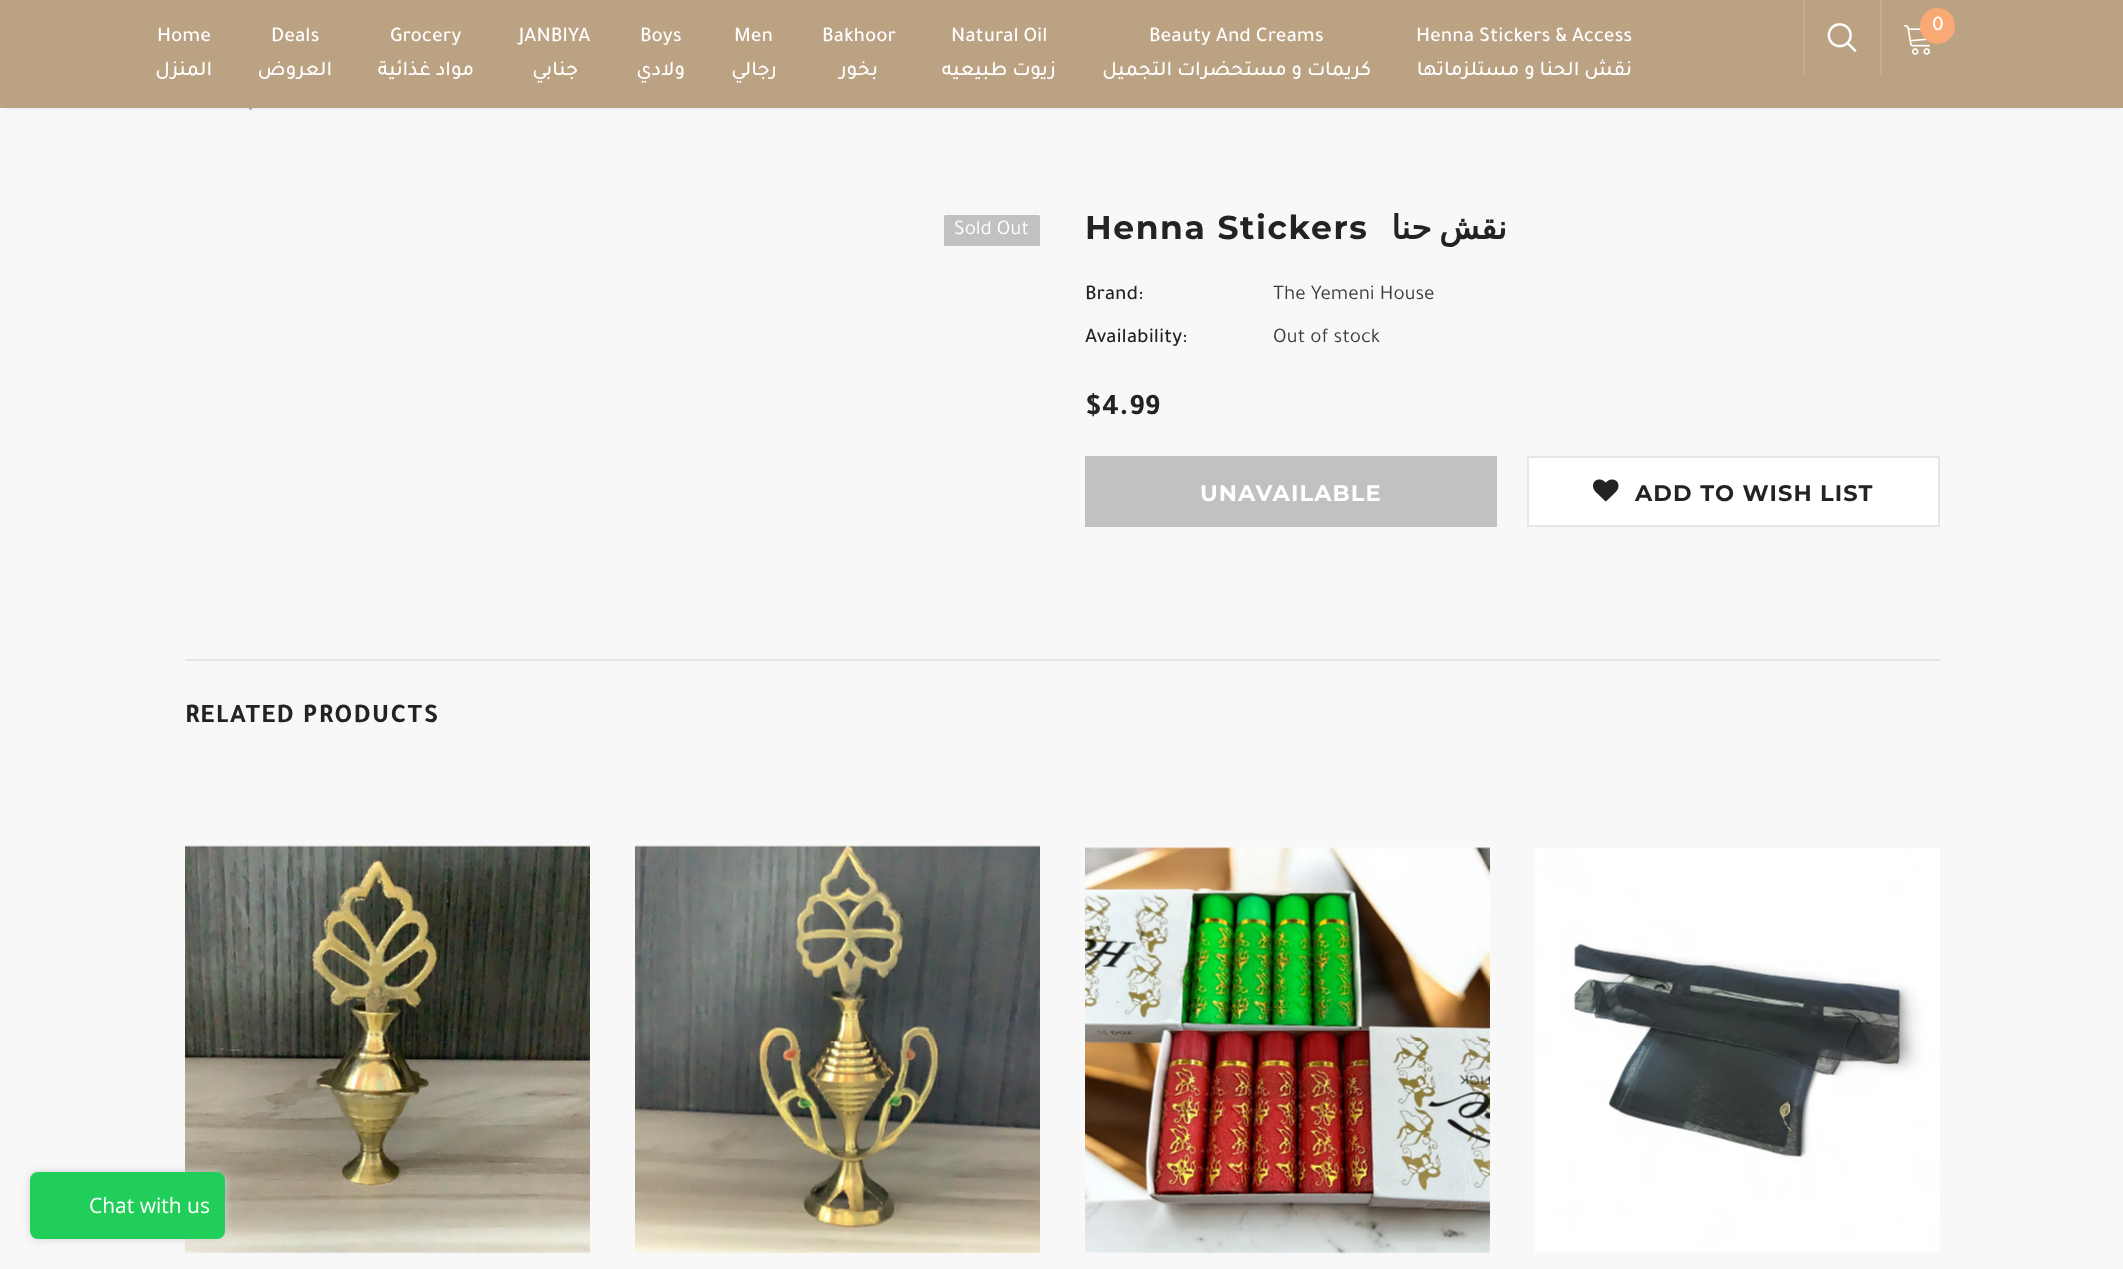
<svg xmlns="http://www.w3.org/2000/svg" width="2123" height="1269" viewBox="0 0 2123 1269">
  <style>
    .t1 { font: 500 21px Tajawal; fill: #fff; }
    .t2 { font: 500 21px Tajawal; direction: rtl; fill: #fff; }
    .t3 { font: 21px Tajawal; fill: #fff; }
    .t4 { font: bold 33px Montserrat; letter-spacing: 1.6px; fill: #232323; }
    .t5 { font: bold 33px DejaVu Sans; letter-spacing: 1.6px; direction: rtl; fill: #232323; }
    .t6 { font: 500 21px Tajawal; fill: #232323; }
    .t7 { font: 21px Tajawal; fill: #3c3c3c; }
    .t8 { font: bold 30px Tajawal; fill: #232323; }
    .t9 { font: bold 22.5px Montserrat; letter-spacing: 1.1px; fill: #fff; }
    .t10 { font: bold 22.5px Montserrat; letter-spacing: 1.1px; fill: #232323; }
    .t11 { font: bold 27px Tajawal; letter-spacing: 1.4px; fill: #232323; }
    .t12 { font: 21px Open Sans; fill: #fff; }
  </style>
  <rect width="100%" height="100%" fill="#f8f8f8"/>
  <image x="249" y="108" width="4" height="2" href="images/3.png"/>
  <rect x="5" y="9" width="2115" height="99" fill="#0000001a" filter="blur(2px)"/>
  <rect x="0" y="0" width="2123" height="108" fill="#baa283"/>
  <rect x="1803" y="0" width="2" height="75" fill="#c4b096"/>
  <image x="1827" y="23" width="30" height="29" href="images/1.png"/>
  <rect x="1880" y="0" width="2" height="75" fill="#c4b096"/>
  <image x="1903" y="25" width="27" height="30" href="images/2.png"/>
  <rect x="1920" y="8" width="35" height="36" rx="17.5" fill="#f9a973"/>
  <text x="1932" y="30" class="t1">0</text>
  <text x="157" y="41" class="t1">Home</text>
  <text x="212" y="75" class="t2">المنزل</text>
  <text x="271" y="41" class="t1">Deals</text>
  <text x="332" y="75" class="t2">العروض</text>
  <text x="390" y="41" class="t1">Grocery</text>
  <text x="474" y="75" class="t2">مواد غذائية</text>
  <text x="519" y="41" class="t1">JANBIYA</text>
  <text x="578" y="75" class="t2">جنابي</text>
  <text x="640" y="41" class="t1">Boys</text>
  <text x="685" y="75" class="t2">ولادي</text>
  <text x="734" y="41" class="t1">Men</text>
  <text x="777" y="75" class="t2">رجالي</text>
  <text x="822" y="41" class="t1">Bakhoor</text>
  <text x="878" y="75" class="t2">بخور</text>
  <text x="951" y="41" class="t1">Natural Oil</text>
  <text x="1056" y="75" class="t2">زيوت طبيعيه</text>
  <text x="1149" y="41" class="t1">Beauty And Creams</text>
  <text x="1371" y="75" class="t2">كريمات و مستحضرات التجميل</text>
  <text x="1416" y="41" class="t1">Henna Stickers &amp; Access</text>
  <text x="1632" y="75" class="t2">نقش الحنا و مستلزماتها</text>
  <rect x="944" y="215" width="96" height="31" rx="1.5" fill="#c1c1c1"/>
  <text x="954" y="234" class="t3">Sold Out</text>
  <text x="1085" y="239" class="t4">Henna Stickers</text>
  <text x="1507" y="239" word-spacing="-3" class="t5">نقش حنا</text>
  <text x="1085" y="299" class="t6">Brand:</text>
  <text x="1273" y="299" class="t7">The Yemeni House</text>
  <text x="1085" y="342" class="t6">Availability:</text>
  <text x="1273" y="342" class="t7">Out of stock</text>
  <text x="1085" y="414" class="t8">$4.99</text>
  <rect x="1085" y="456" width="412" height="71" fill="#c1c1c1"/>
  <text x="1200" y="501" class="t9">UNAVAILABLE</text>
  <rect x="1528" y="457" width="411" height="69" fill="#fff" stroke="#e6e6e6" stroke-width="2"/>
  <image x="1593" y="479" width="26" height="23" href="images/4.png"/>
  <text x="1635" y="501" class="t10">ADD TO WISH LIST</text>
  <rect x="185" y="659" width="1755" height="2" fill="#e6e6e6"/>
  <text x="185" y="722" class="t11">RELATED PRODUCTS</text>
  <image x="185" y="845" width="405" height="409" href="images/5.png"/>
  <image x="635" y="845" width="405" height="409" href="images/6.png"/>
  <image x="1085" y="847" width="405" height="407" href="images/7.png"/>
  <image x="1535" y="848" width="405" height="405" href="images/8.png"/>
  <rect x="30" y="1172" width="195" height="67" rx="8" fill="#d3d3d3" filter="blur(4px)"/>
  <rect x="30" y="1172" width="195" height="67" rx="8" fill="#22ce5a"/>
  <text x="89" y="1213" class="t12">Chat with us</text>
</svg>
